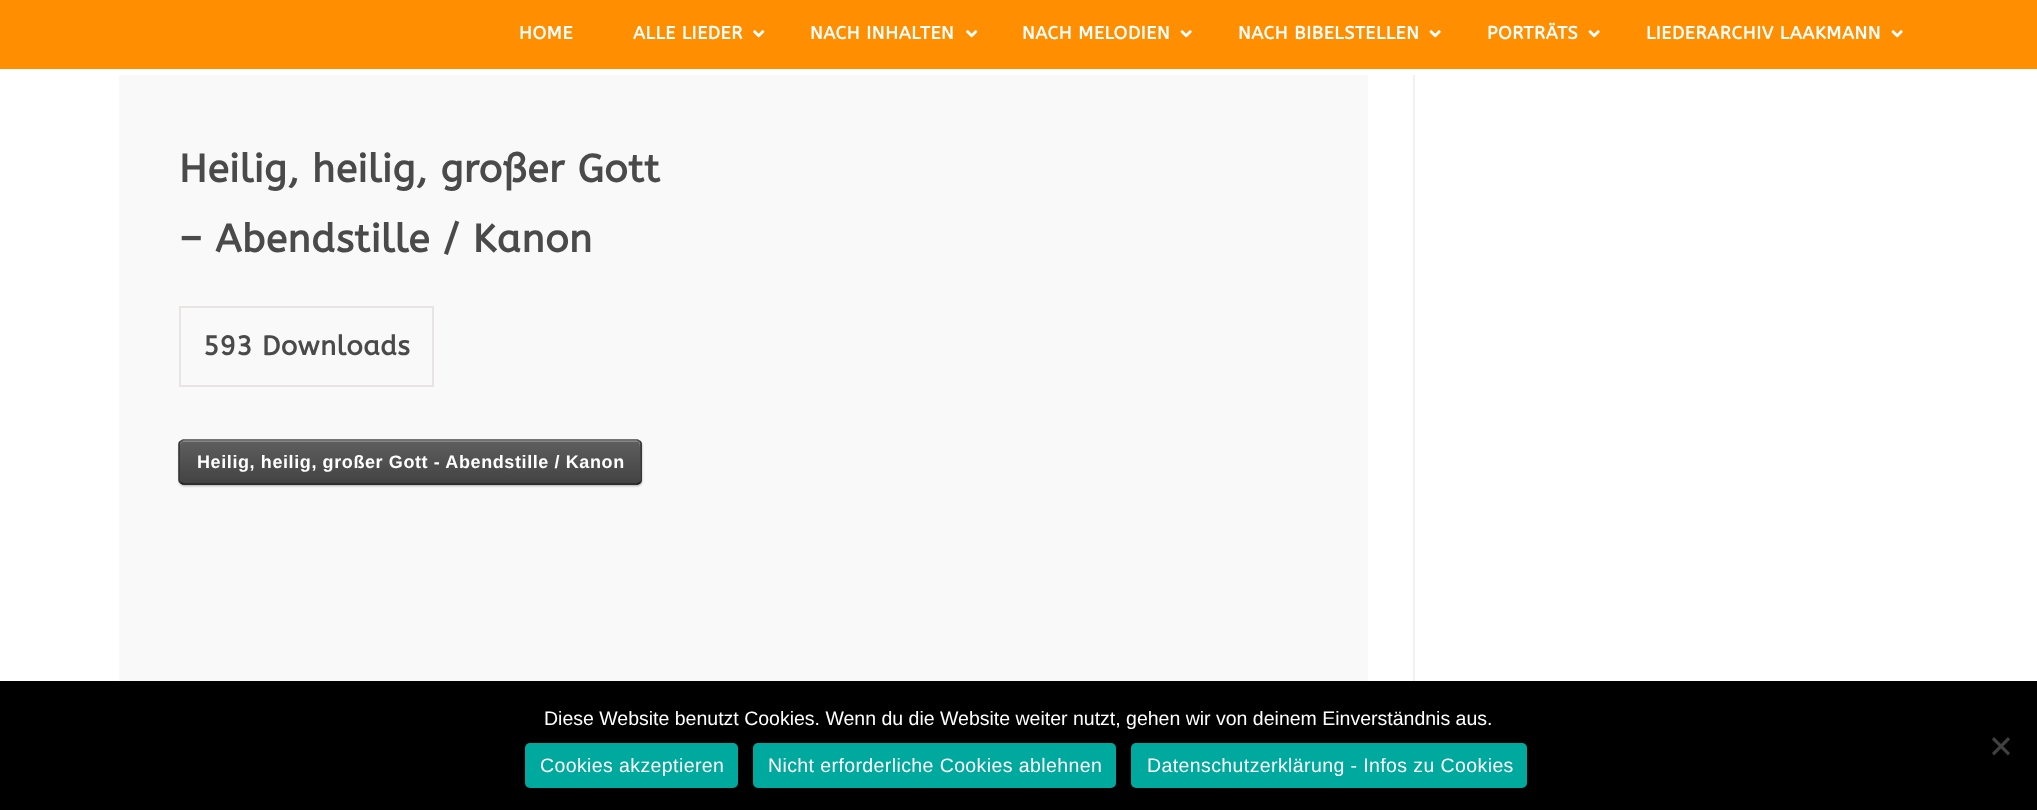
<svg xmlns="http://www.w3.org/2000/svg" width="2037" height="810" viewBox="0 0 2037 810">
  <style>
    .t1 { font: bold 18px ABeeZee; letter-spacing: 0.6px; fill: #fff; }
    .t2 { font: bold 39px ABeeZee; letter-spacing: 0.6px; fill: #4a4a4a; }
    .t3 { font: bold 27px ABeeZee; letter-spacing: 0.6px; fill: #4a4a4a; }
    .t4 { font: bold 18px Liberation Sans; letter-spacing: 0.6px; fill: #fff; }
    .t5 { font: 19.5px Liberation Sans; fill: #fff; }
    .t6 { font: 19.5px Liberation Sans; letter-spacing: 0.4px; fill: #fff; }
  </style>
  <defs>
    <clipPath id="clip1"><rect x="179" y="440" width="463" height="45" rx="5"/></clipPath>
    <linearGradient id="g1" gradientUnits="userSpaceOnUse" x1="180" y1="441" x2="180" y2="483"><stop offset="0" stop-color="#5e5e5e"/><stop offset="1" stop-color="#434343"/></linearGradient>
    <linearGradient id="g2" gradientUnits="userSpaceOnUse" x1="180" y1="483" x2="180" y2="525"><stop offset="0" stop-color="#5e5e5e"/><stop offset="1" stop-color="#434343"/></linearGradient>
  </defs>
  <rect width="100%" height="100%" fill="#fff"/>
  <rect x="0" y="0" width="2037" height="69" fill="#ff8f00"/>
  <text x="519" y="39" class="t1">HOME</text>
  <text x="633" y="39" class="t1">ALLE LIEDER</text>
  <image x="753" y="30" width="12" height="8" href="images/1.png"/>
  <text x="810" y="39" class="t1">NACH INHALTEN</text>
  <image x="966" y="30" width="12" height="8" href="images/1.png"/>
  <text x="1022" y="39" class="t1">NACH MELODIEN</text>
  <image x="1180" y="30" width="12" height="8" href="images/2.png"/>
  <text x="1238" y="39" class="t1">NACH BIBELSTELLEN</text>
  <image x="1429" y="30" width="12" height="8" href="images/2.png"/>
  <text x="1487" y="39" class="t1">PORTRÄTS</text>
  <image x="1588" y="30" width="12" height="8" href="images/2.png"/>
  <text x="1646" y="39" class="t1">LIEDERARCHIV LAAKMANN</text>
  <image x="1891" y="30" width="12" height="8" href="images/2.png"/>
  <rect x="1413" y="75" width="2" height="606" fill="#f1f1f1"/>
  <rect x="119" y="75" width="1249" height="606" fill="#f9f9f9"/>
  <text x="179" y="182" class="t2">Heilig, heilig, großer Gott</text>
  <text x="179" y="252" class="t2">– Abendstille / Kanon</text>
  <rect x="180" y="307" width="253" height="79" fill="none" stroke="#e8e4e3" stroke-width="2"/>
  <text x="203" y="355" class="t3">593 Downloads</text>
  <rect x="179" y="441" width="463" height="45" rx="5" fill="#afafaf" filter="blur(1px)"/>
  <g clip-path="url(#clip1)">
    <rect x="179" y="441" width="463" height="42" fill="url(#g1)"/>
    <rect x="179" y="483" width="463" height="2" fill="url(#g2)"/>
  </g>
  <path d="M183 442H638C641 442 640 457 640 458V482C641 482 641 481 641 480V444C641 442 640 441 638 441H183C181 441 180 442 180 444V446C180 444 181 442 183 442Z" fill="#868686"/>
  <path d="M180.5 441.5L183 440H637.5L640 441.5" fill="none" stroke="#4c4c4c" stroke-width="1.5"/>
  <path d="M640 441.5C641 442 641 443 641 444V480C641 481 641 482 640 482.5" fill="none" stroke="#313131" stroke-width="1.5"/>
  <path d="M640 482.5L637.5 484H183L180.5 482.5" fill="none" stroke="#1f1f1f" stroke-width="1.5"/>
  <path d="M180.5 482.5C179.5 482 179 481 179 480V444C179 443 179.5 442 180.5 441.5" fill="none" stroke="#313131" stroke-width="1.5"/>
  <text x="197" y="468" class="t4">Heilig, heilig, großer Gott - Abendstille / Kanon</text>
  <rect x="0" y="681" width="2037" height="129" fill="#000"/>
  <text x="544" y="725" class="t5">Diese Website benutzt Cookies. Wenn du die Website weiter nutzt, gehen wir von deinem Einverständnis aus.</text>
  <path d="M2008 737L2010 739.5L1994 755.5L1992 753Z" fill="#404040"/>
  <path d="M1992 739.5L1994 737L2010 753L2008 755.5Z" fill="#404040"/>
  <rect x="525" y="743" width="213" height="45" rx="5" fill="#00a99d"/>
  <text x="540" y="772" class="t6">Cookies akzeptieren</text>
  <rect x="753" y="743" width="363" height="45" rx="5" fill="#00a99d"/>
  <text x="768" y="772" class="t6">Nicht erforderliche Cookies ablehnen</text>
  <rect x="1131" y="743" width="396" height="45" rx="5" fill="#00a99d"/>
  <text x="1147" y="772" class="t6">Datenschutzerklärung - Infos zu Cookies</text>
</svg>
